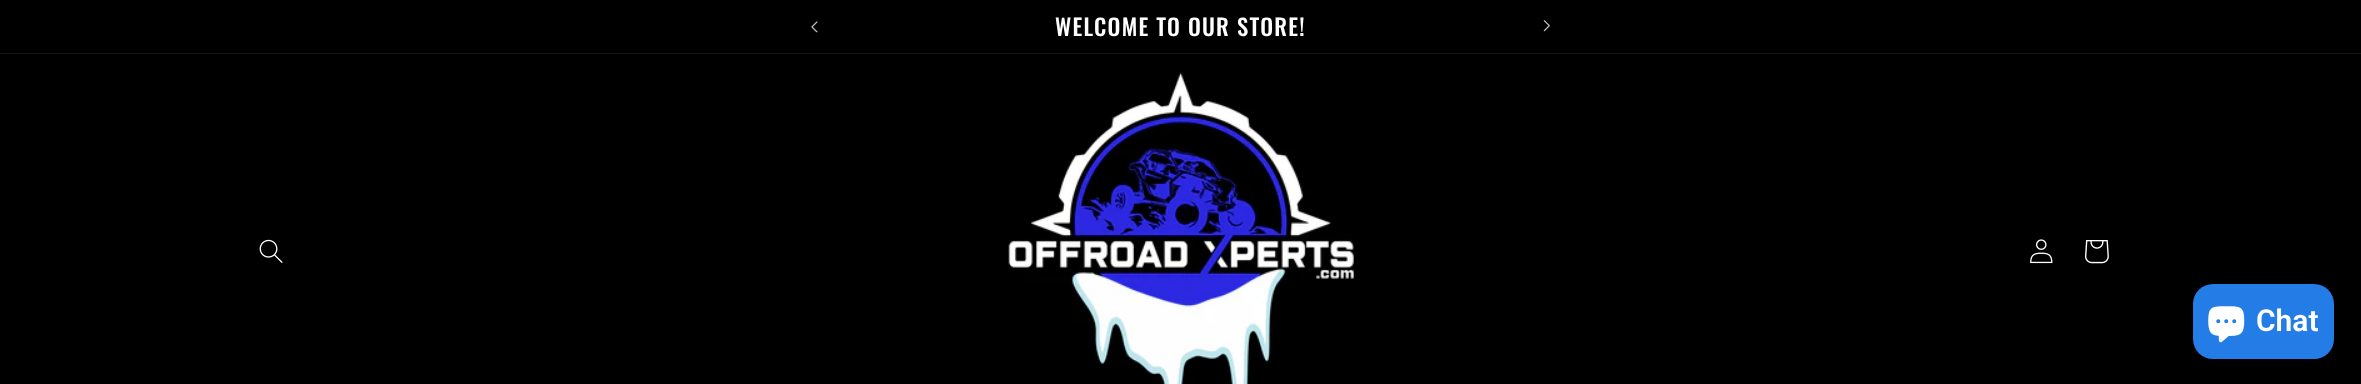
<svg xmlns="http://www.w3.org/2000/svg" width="2361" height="384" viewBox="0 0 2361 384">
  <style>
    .t1 { font: 500 22.75px Oswald; letter-spacing: 1.25px; fill: #fff; }
    .t2 { font: 600 30px Roboto; fill: #fff; }
  </style>
  <rect width="100%" height="100%" fill="#000"/>
  <rect x="0" y="53" width="2361" height="1" fill="#141414"/>
  <image x="811" y="21" width="7" height="12" href="images/1.png"/>
  <text x="1055" y="36" class="t1">WELCOME TO OUR STORE!</text>
  <image x="1543" y="20" width="7" height="12" href="images/2.png"/>
  <image x="259" y="239" width="24" height="24" href="images/3.png"/>
  <image x="1008" y="72" width="346" height="312" href="images/4.png"/>
  <image x="2030" y="239" width="23" height="25" href="images/5.png"/>
  <image x="2085" y="240" width="24" height="24" href="images/6.png"/>
  <rect x="2193" y="284" width="141" height="75" rx="20" fill="#247ce6"/>
  <image x="2208" y="306" width="37" height="37" href="images/7.png"/>
  <text x="2256" y="331" class="t2">Chat</text>
</svg>
